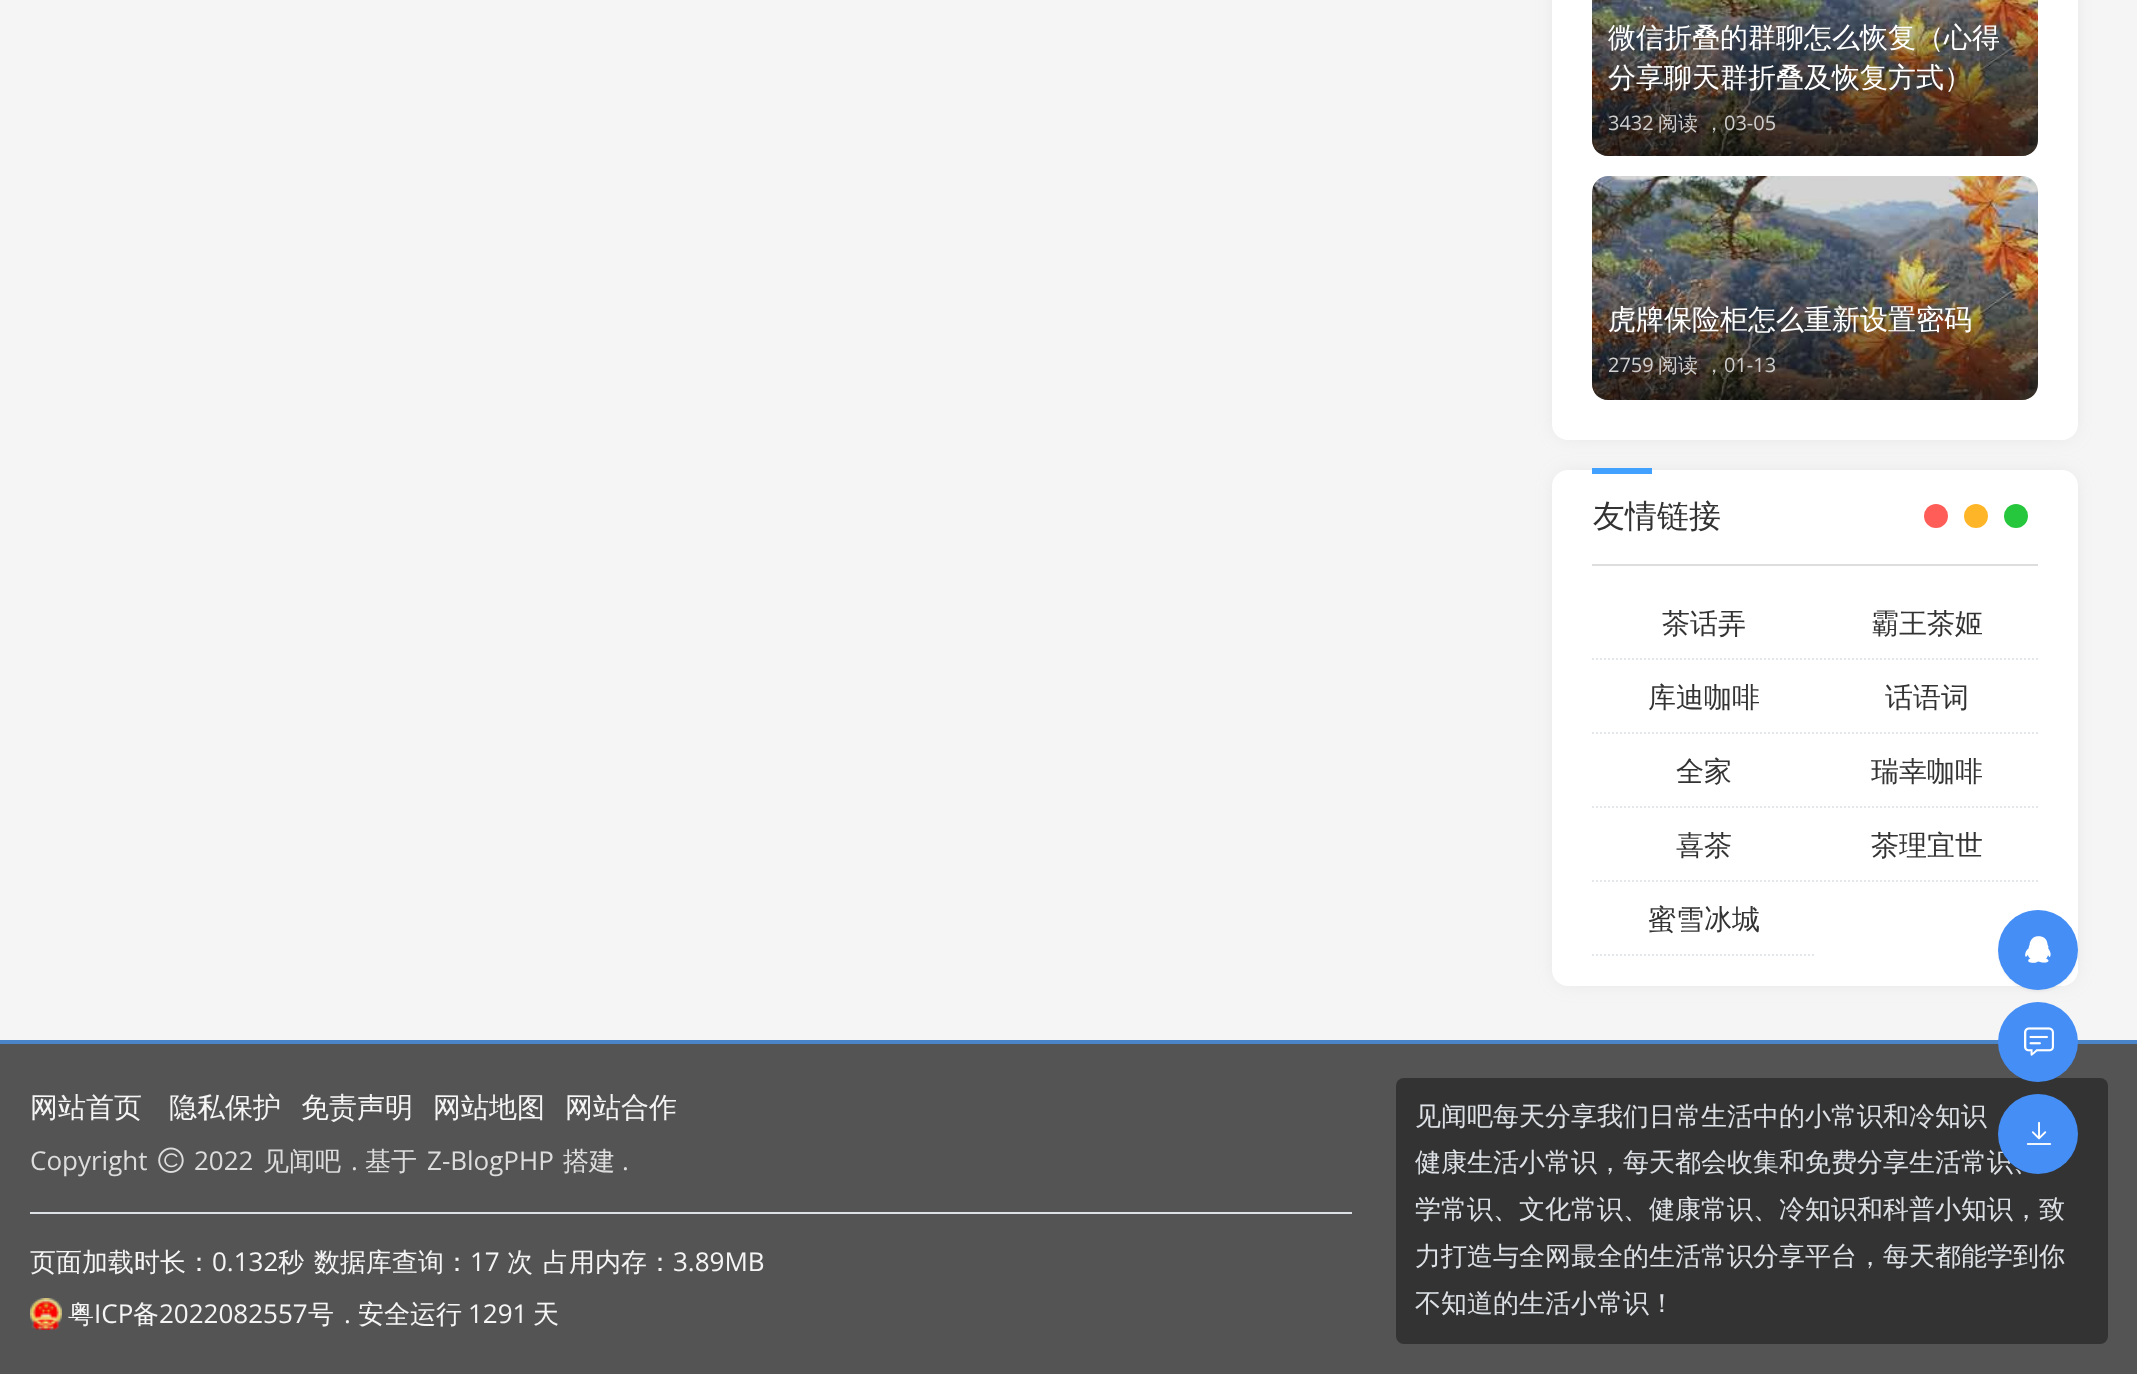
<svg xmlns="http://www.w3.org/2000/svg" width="2137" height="1374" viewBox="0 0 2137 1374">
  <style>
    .t1 { font: 500 28px WenQuanYi Zen Hei; fill: #fff; }
    .t2 { font: 20px Open Sans; fill: #d0cfcf; }
    .t3 { font: 500 20px WenQuanYi Zen Hei; fill: #d0cfcf; }
    .t4 { font: 500 32px WenQuanYi Zen Hei; fill: #333; }
    .t5 { font: 500 28px WenQuanYi Zen Hei; fill: #333; }
    .t6 { font: 500 26px WenQuanYi Zen Hei; fill: #dee2e6; }
    .t7 { font: 500 28px WenQuanYi Zen Hei; fill: #f5f5f5; }
    .t8 { font: 26px Open Sans; fill: #ddd; }
    .t9 { font: 500 26px WenQuanYi Zen Hei; fill: #ddd; }
    .t10 { font: 500 26px WenQuanYi Zen Hei; fill: #f5f5f5; }
    .t11 { font: 26px Open Sans; fill: #f5f5f5; }
  </style>
  <defs>
    <linearGradient id="g1" gradientUnits="userSpaceOnUse" x1="1815" y1="-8" x2="1815" y2="156"><stop offset="0" stop-color="#060608" stop-opacity="0"/><stop offset="1" stop-color="#060608" stop-opacity="0.7"/></linearGradient>
    <linearGradient id="g2" gradientUnits="userSpaceOnUse" x1="1815" y1="274" x2="1815" y2="400"><stop offset="0" stop-color="#060608" stop-opacity="0"/><stop offset="1" stop-color="#060608" stop-opacity="0.7"/></linearGradient>
  </defs>
  <rect width="100%" height="100%" fill="#f5f5f5"/>
  <rect x="1556" y="-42" width="518" height="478" rx="12" fill="#9e9e9e33" filter="blur(10px)"/>
  <rect x="1552" y="-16" width="526" height="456" rx="16" fill="#fff"/>
  <rect x="1592" y="-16" width="446" height="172" rx="16" fill="#f2f2f2"/>
  <image x="1592" y="0" width="446" height="156" href="images/1.png"/>
  <rect x="1592" y="-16" width="446" height="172" rx="16" fill="#00000026"/>
  <path d="M1592-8H2038V140C2038 149 2031 156 2022 156H1608C1599 156 1592 149 1592 140Z" fill="url(#g1)"/>
  <text x="1608" y="47" class="t1">微信折叠的群聊怎么恢复（心得</text>
  <text x="1608" y="87" class="t1">分享聊天群折叠及恢复方式）</text>
  <text x="1608" y="130" class="t2">3432</text>
  <text x="1658" y="130" class="t3">阅读 ，</text>
  <text x="1724" y="130" class="t2">03-05</text>
  <rect x="1592" y="176" width="446" height="224" rx="16" fill="#f2f2f2"/>
  <image x="1592" y="176" width="446" height="224" href="images/2.png"/>
  <rect x="1592" y="176" width="446" height="224" rx="16" fill="#00000026"/>
  <path d="M1592 274H2038V384C2038 393 2031 400 2022 400H1608C1599 400 1592 393 1592 384Z" fill="url(#g2)"/>
  <text x="1608" y="329" class="t1">虎牌保险柜怎么重新设置密码</text>
  <text x="1608" y="372" class="t2">2759</text>
  <text x="1658" y="372" class="t3">阅读 ，</text>
  <text x="1724" y="372" class="t2">01-13</text>
  <rect x="1556" y="474" width="518" height="508" rx="12" fill="#9e9e9e33" filter="blur(10px)"/>
  <rect x="1552" y="470" width="526" height="516" rx="16" fill="#fff"/>
  <rect x="1592" y="564" width="446" height="2" fill="#ddd"/>
  <rect x="1592" y="468" width="60" height="6" fill="#42a1ff"/>
  <text x="1593" y="527" class="t4">友情链接</text>
  <circle cx="2016" cy="516" r="12" fill="#26c73d"/>
  <circle cx="1976" cy="516" r="12" fill="#ffb528"/>
  <circle cx="1936" cy="516" r="12" fill="#ff5d58"/>
  <path d="M1592 659H1816" fill="none" stroke="#e4e8eb" stroke-width="2" stroke-dasharray="2 2"/>
  <text x="1662" y="633" class="t5">茶话弄</text>
  <path d="M1816 659H2038" fill="none" stroke="#e4e8eb" stroke-width="2" stroke-dasharray="2 2"/>
  <text x="1871" y="633" class="t5">霸王茶姬</text>
  <path d="M1592 733H1816" fill="none" stroke="#e4e8eb" stroke-width="2" stroke-dasharray="2 2"/>
  <text x="1648" y="707" class="t5">库迪咖啡</text>
  <path d="M1816 733H2038" fill="none" stroke="#e4e8eb" stroke-width="2" stroke-dasharray="2 2"/>
  <text x="1885" y="707" class="t5">话语词</text>
  <path d="M1592 807H1816" fill="none" stroke="#e4e8eb" stroke-width="2" stroke-dasharray="2 2"/>
  <text x="1676" y="781" class="t5">全家</text>
  <path d="M1816 807H2038" fill="none" stroke="#e4e8eb" stroke-width="2" stroke-dasharray="2 2"/>
  <text x="1871" y="781" class="t5">瑞幸咖啡</text>
  <path d="M1592 881H1816" fill="none" stroke="#e4e8eb" stroke-width="2" stroke-dasharray="2 2"/>
  <text x="1676" y="855" class="t5">喜茶</text>
  <path d="M1816 881H2038" fill="none" stroke="#e4e8eb" stroke-width="2" stroke-dasharray="2 2"/>
  <text x="1871" y="855" class="t5">茶理宜世</text>
  <path d="M1592 955H1816" fill="none" stroke="#e4e8eb" stroke-width="2" stroke-dasharray="2 2"/>
  <text x="1648" y="929" class="t5">蜜雪冰城</text>
  <rect x="0" y="1044" width="2137" height="330" fill="#545454"/>
  <rect x="0" y="1040" width="2137" height="4" fill="#4985c8"/>
  <rect x="1998" y="912" width="80" height="80" rx="40" fill="#0000000a" filter="blur(1px)"/>
  <circle cx="2038" cy="950" r="40" fill="#448ef6"/>
  <image x="2025" y="936" width="26" height="27" href="images/3.png"/>
  <rect x="1396" y="1078" width="712" height="266" rx="8" fill="#333"/>
  <circle cx="2038" cy="1042" r="40" fill="#448ef6"/>
  <image x="2024" y="1027" width="30" height="29" href="images/4.png"/>
  <text x="1415" y="1171" class="t6">健康生活小常识，每天都会收集和免费分享生活常识、</text>
  <circle cx="2038" cy="1134" r="40" fill="#448ef6"/>
  <image x="2026" y="1121" width="26" height="24" href="images/5.png"/>
  <text x="30" y="1117" class="t7">网站首页</text>
  <text x="169" y="1117" class="t7">隐私保护</text>
  <text x="301" y="1117" class="t7">免责声明</text>
  <text x="433" y="1117" class="t7">网站地图</text>
  <text x="565" y="1117" class="t7">网站合作</text>
  <text x="30" y="1170" class="t8">Copyright</text>
  <image x="158" y="1147" width="26" height="26" href="images/6.png"/>
  <text x="194" y="1170" class="t8">2022</text>
  <text x="263" y="1170" class="t9">见闻吧</text>
  <text x="351" y="1170" class="t8">.</text>
  <text x="365" y="1170" class="t9">基于</text>
  <text x="427" y="1170" class="t8">Z-BlogPHP</text>
  <text x="563" y="1170" class="t9">搭建</text>
  <text x="622" y="1170" class="t8">.</text>
  <text x="1415" y="1125" class="t6">见闻吧每天分享我们日常生活中的小常识和冷知识</text>
  <text x="1415" y="1218" class="t6">学常识、文化常识、健康常识、冷知识和科普小知识，致</text>
  <text x="1415" y="1265" class="t6">力打造与全网最全的生活常识分享平台，每天都能学到你</text>
  <text x="1415" y="1312" class="t6">不知道的生活小常识！</text>
  <rect x="30" y="1212" width="1322" height="2" fill="#dee2e6"/>
  <text x="30" y="1271" class="t10">页面加载时长：</text>
  <text x="212" y="1271" class="t11">0.132</text>
  <text x="278" y="1271" class="t10">秒</text>
  <text x="314" y="1271" class="t10">数据库查询：</text>
  <text x="470" y="1271" class="t11">17</text>
  <text x="507" y="1271" class="t10">次</text>
  <text x="543" y="1271" class="t10">占用内存：</text>
  <text x="673" y="1271" class="t11">3.89MB</text>
  <image x="30" y="1298" width="32" height="32" href="images/7.png"/>
  <text x="68" y="1323" class="t10">粤</text>
  <text x="94" y="1323" class="t11">ICP</text>
  <text x="133" y="1323" class="t10">备</text>
  <text x="159" y="1323" class="t11">2022082557</text>
  <text x="308" y="1323" class="t10">号</text>
  <text x="344" y="1323" class="t11">.</text>
  <text x="358" y="1323" class="t10">安全运行</text>
  <text x="468" y="1323" class="t11">1291</text>
  <text x="533" y="1323" class="t10">天</text>
</svg>
